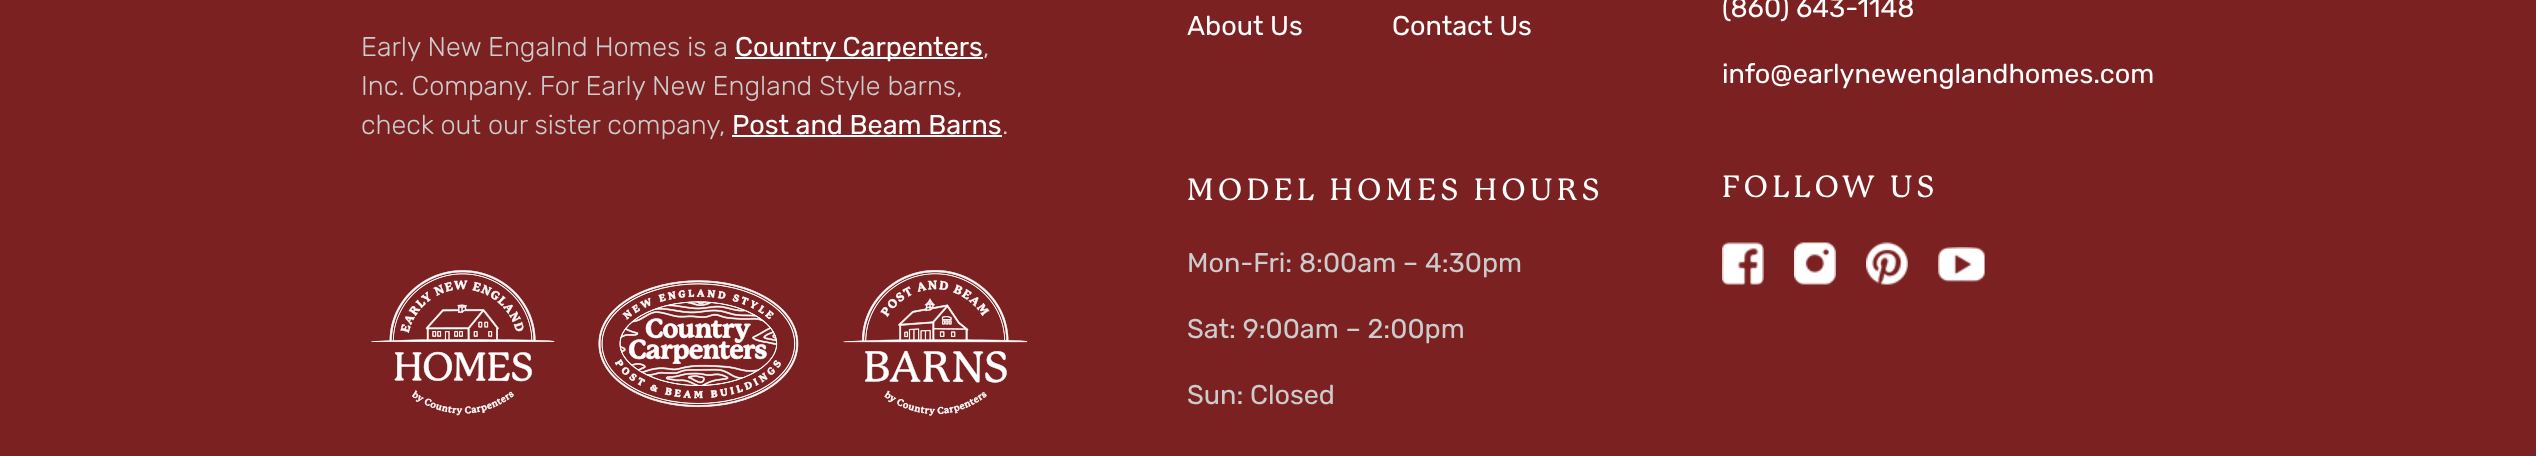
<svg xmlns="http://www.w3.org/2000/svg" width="2536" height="456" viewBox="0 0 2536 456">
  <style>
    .t1 { font: 300 27px Rubik; fill: #ccc; }
    .t2 { font: 300 27px 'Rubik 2'; fill: #fff; }
    .t3 { font: 500 30px 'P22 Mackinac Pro'; letter-spacing: 4.5px; fill: #fff; }
    .t4 { font: 300 27px 'Rubik 2'; fill: #ccc; }
  </style>
  <rect width="100%" height="100%" fill="#7c2121"/>
  <text x="361" y="56" class="t1">Early New Engalnd Homes is a</text>
  <rect x="735" y="57" width="248" height="2" fill="#fff"/>
  <text x="735" y="56" class="t2">Country Carpenters</text>
  <text x="983" y="56" class="t1">,</text>
  <text x="361" y="95" class="t1">Inc. Company. For Early New England Style barns,</text>
  <text x="361" y="134" class="t1">check out our sister company,</text>
  <text x="732" y="134" class="t2">Post and Beam Barns</text>
  <rect x="732" y="135" width="270" height="2" fill="#fff"/>
  <text x="1002" y="134" class="t1">.</text>
  <image x="371" y="270" width="184" height="146" href="images/1.png"/>
  <image x="598" y="280" width="201" height="128" href="images/2.png"/>
  <image x="843" y="270" width="185" height="146" href="images/3.png"/>
  <text x="1187" y="35" class="t2">About Us</text>
  <text x="1392" y="35" class="t2">Contact Us</text>
  <text x="1187" y="200" class="t3">MODEL HOMES HOURS</text>
  <text x="1187" y="272" class="t4">Mon-Fri: 8:00am – 4:30pm</text>
  <text x="1187" y="338" class="t4">Sat: 9:00am – 2:00pm</text>
  <text x="1187" y="404" class="t4">Sun: Closed</text>
  <text x="1722" y="17" class="t2">(860) 643-1148</text>
  <text x="1722" y="83" class="t2">info@earlynewenglandhomes.com</text>
  <text x="1722" y="197" class="t3">FOLLOW US</text>
  <image x="1722" y="242" width="42" height="43" href="images/4.png"/>
  <image x="1794" y="242" width="42" height="43" href="images/5.png"/>
  <image x="1866" y="242" width="42" height="43" href="images/6.png"/>
  <image x="1938" y="247" width="47" height="35" href="images/7.png"/>
</svg>
